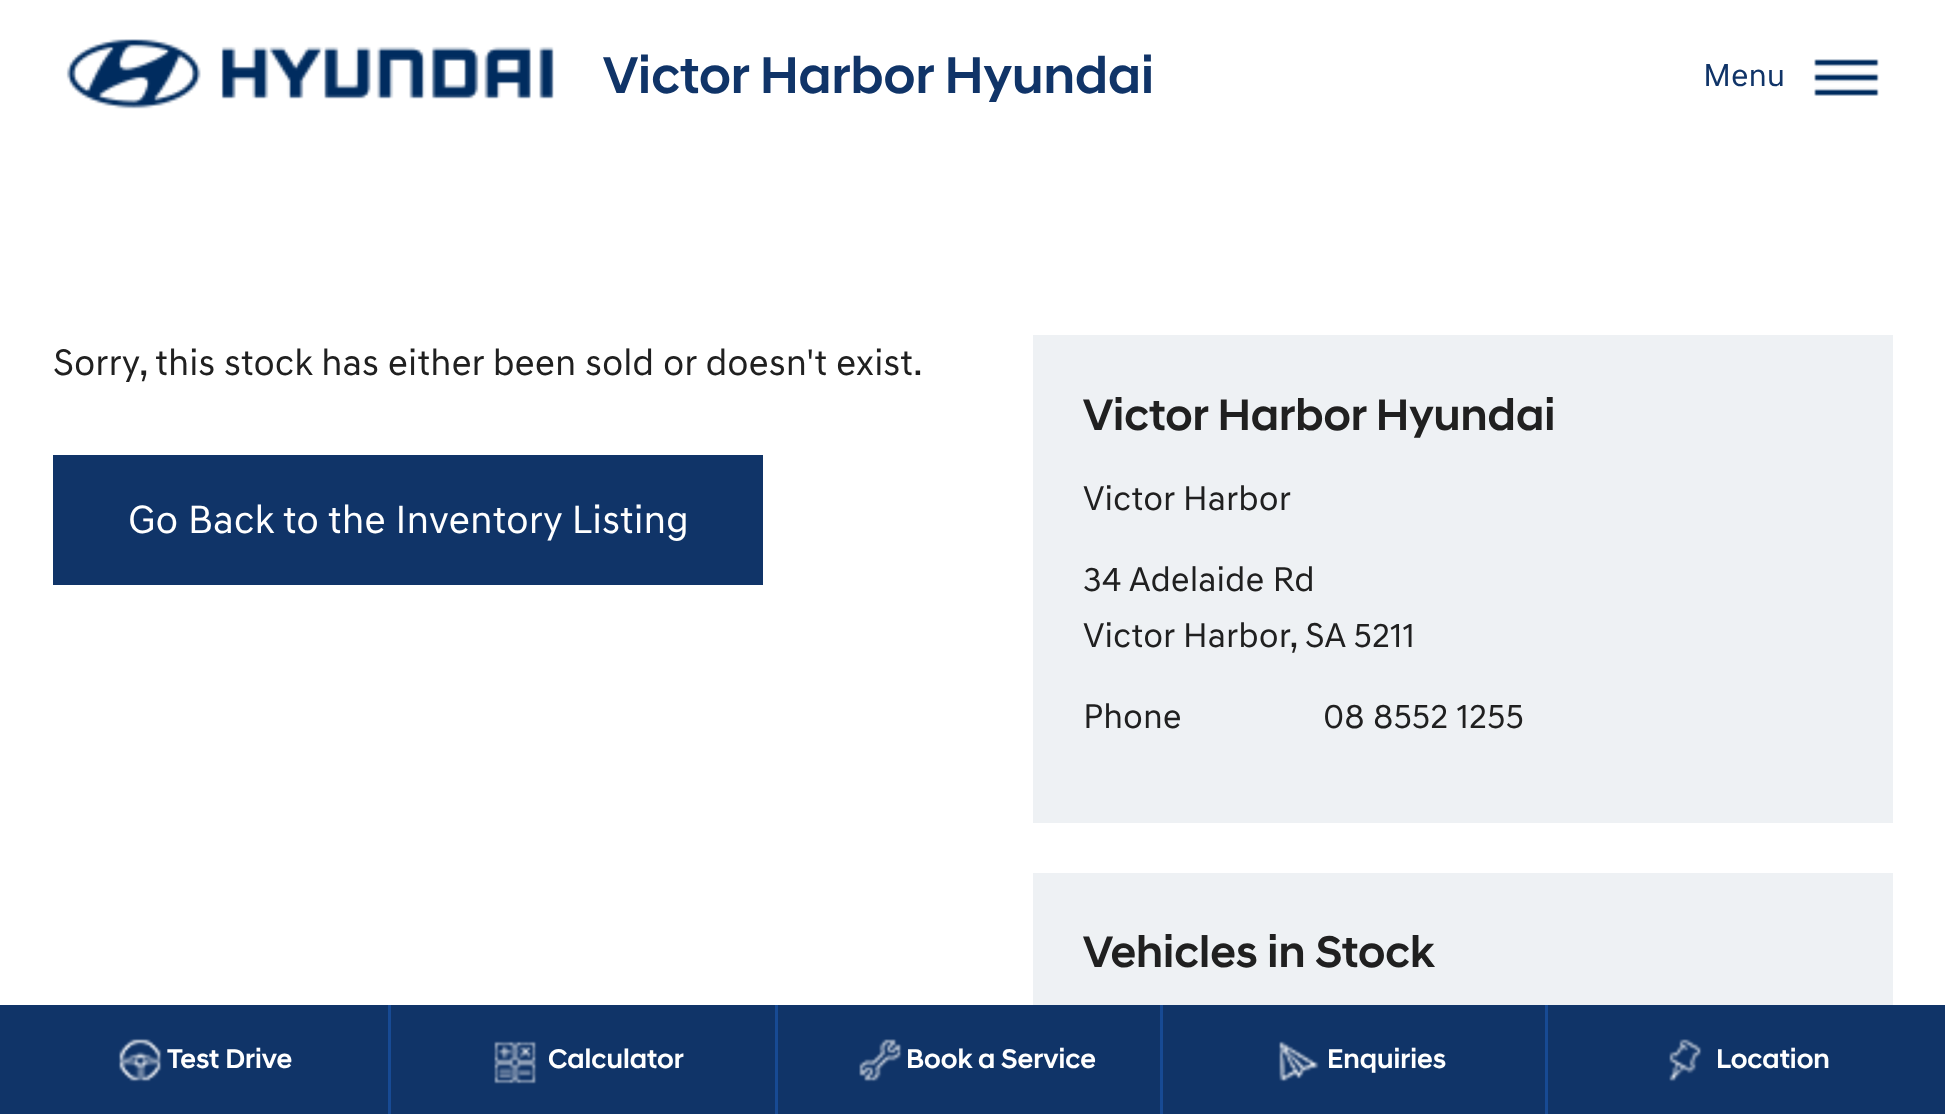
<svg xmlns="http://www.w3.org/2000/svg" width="1945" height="1114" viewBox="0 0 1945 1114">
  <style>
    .t1 { font: 500 52.5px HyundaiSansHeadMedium; fill: #103468; }
    .t2 { font: 32.5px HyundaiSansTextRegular; fill: #103468; }
    .t3 { font: 37.5px HyundaiSansTextRegular; fill: #202020; }
    .t4 { font: 40px HyundaiSansTextRegular; fill: #fff; }
    .t5 { font: 500 45px HyundaiSansHeadMedium; fill: #202020; }
    .t6 { font: 35px HyundaiSansTextRegular; fill: #202020; }
    .t7 { font: 500 27.5px HyundaiSansHeadMedium; fill: #fff; }
  </style>
  <rect width="100%" height="100%" fill="#fff"/>
  <image x="66" y="39" width="488" height="70" href="images/1.png"/>
  <text x="603" y="93" class="t1">Victor Harbor Hyundai</text>
  <text x="1703" y="86" class="t2">Menu</text>
  <image x="1814" y="59" width="65" height="37" href="images/2.png"/>
  <text x="53" y="375" class="t3">Sorry, this stock has either been sold or doesn't exist.</text>
  <rect x="53" y="455" width="710" height="130" fill="#103468"/>
  <text x="128" y="533" class="t4">Go Back to the Inventory Listing</text>
  <rect x="1033" y="335" width="860" height="488" fill="#eef1f4"/>
  <text x="1083" y="430" class="t5">Victor Harbor Hyundai</text>
  <text x="1083" y="510" class="t6">Victor Harbor</text>
  <text x="1083" y="591" class="t6">34 Adelaide Rd</text>
  <text x="1083" y="647" class="t6">Victor Harbor, SA 5211</text>
  <text x="1083" y="728" class="t6">Phone</text>
  <text x="1323" y="728" class="t6">08 8552 1255</text>
  <rect x="1033" y="873" width="860" height="132" fill="#eef1f4"/>
  <text x="1083" y="967" class="t5">Vehicles in Stock</text>
  <rect x="0" y="1005" width="1945" height="109" fill="#103468"/>
  <rect x="388" y="1005" width="3" height="109" fill="#174a94"/>
  <image x="118" y="1038" width="44" height="44" href="images/3.png"/>
  <text x="167" y="1068" class="t7">Test Drive</text>
  <rect x="775" y="1005" width="3" height="109" fill="#174a94"/>
  <image x="494" y="1041" width="43" height="43" href="images/4.png"/>
  <text x="548" y="1068" class="t7">Calculator</text>
  <rect x="1160" y="1005" width="3" height="109" fill="#174a94"/>
  <image x="859" y="1039" width="43" height="43" href="images/5.png"/>
  <text x="906" y="1068" class="t7">Book a Service</text>
  <rect x="1545" y="1005" width="3" height="109" fill="#174a94"/>
  <image x="1278" y="1041" width="41" height="41" href="images/6.png"/>
  <text x="1327" y="1068" class="t7">Enquiries</text>
  <image x="1669" y="1039" width="33" height="43" href="images/7.png"/>
  <text x="1716" y="1068" class="t7">Location</text>
</svg>
